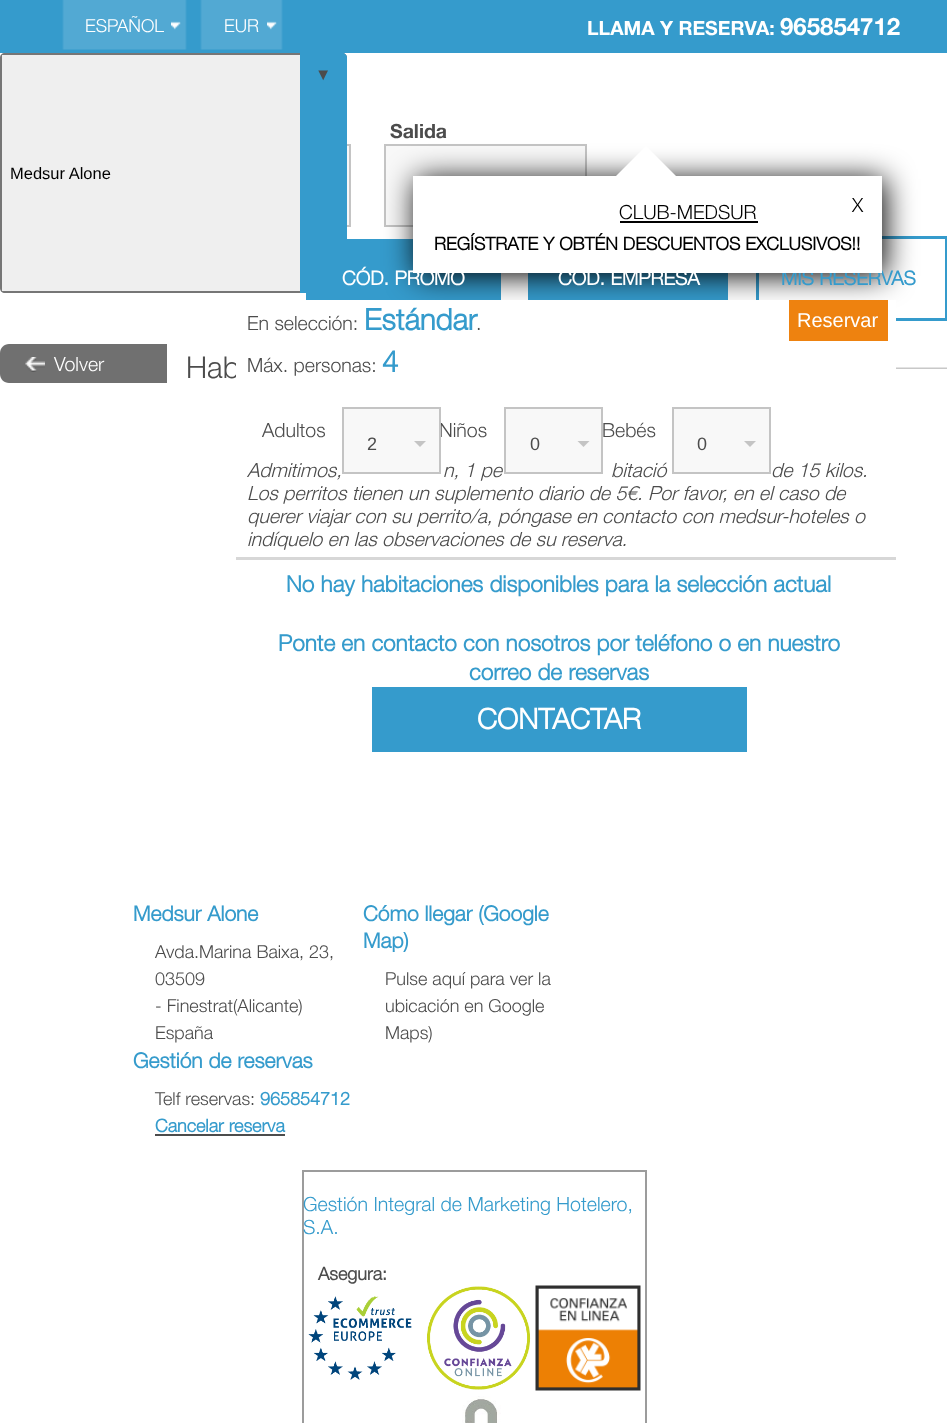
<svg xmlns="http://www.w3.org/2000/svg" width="947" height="1423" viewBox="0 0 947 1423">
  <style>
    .t1 { font: 300 18px 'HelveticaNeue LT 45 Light'; fill: #fff; }
    .t2 { font: bold 19.5px Helvetica Neue; fill: #fff; }
    .t3 { font: bold 24px Helvetica Neue; fill: #fff; }
    .t4 { font: 16.5px Liberation Sans; fill: #4c4c4c; }
    .t5 { font: 16.5px Liberation Sans; fill: #000; }
    .t6 { font: bold 19.5px Helvetica Neue; fill: #4c4c4c; }
    .t7 { font: bold 19.5px 'HelveticaNeue LT 45 Light'; fill: #359bcc; }
    .t8 { font: 300 19.5px 'HelveticaNeue LT 45 Light'; fill: #000; }
    .t9 { font: bold 18px 'HelveticaNeue LT 45 Light'; fill: #000; }
    .t10 { font: bold 19.5px 'HelveticaNeue LT 45 Light'; fill: #fff; }
    .t11 { font: 300 19.5px 'HelveticaNeue LT 45 Light'; fill: #fff; }
    .t12 { font: 300 30px 'HelveticaNeue LT 45 Light'; fill: #4c4c4c; }
    .t13 { font: 300 19.5px 'HelveticaNeue LT 45 Light'; fill: #4c4c4c; }
    .t14 { font: bold 29.5px 'HelveticaNeue LT 45 Light'; fill: #359bcc; }
    .t15 { font: 20px Liberation Sans; fill: #fff; }
    .t16 { font: 18px Liberation Sans; fill: #4c4c4c; }
    .t17 { font: italic 300 19.5px 'HelveticaNeue LT 45 Light'; fill: #4c4c4c; }
    .t18 { font: bold 22.5px 'HelveticaNeue LT 45 Light'; fill: #359bcc; }
    .t19 { font: bold 28.5px 'HelveticaNeue LT 45 Light'; fill: #fff; }
    .t20 { font: bold 21px 'HelveticaNeue LT 45 Light'; fill: #359bcc; }
    .t21 { font: 300 18px 'HelveticaNeue LT 45 Light'; fill: #4c4c4c; }
    .t22 { font: bold 18px 'HelveticaNeue LT 45 Light'; fill: #359bcc; }
    .t23 { font: 300 19.6px 'HelveticaNeue LT 45 Light'; fill: #359bcc; }
    .t24 { font: bold 18px 'HelveticaNeue LT 45 Light'; fill: #4c4c4c; }
  </style>
  <rect width="100%" height="100%" fill="#fff"/>
  <rect x="0" y="0" width="947" height="53" fill="#359bcc"/>
  <image x="62" y="0" width="125" height="50" href="images/1.png"/>
  <text x="85" y="32" class="t1">ESPAÑOL</text>
  <image x="171" y="21" width="10" height="9" href="images/2.png"/>
  <image x="200" y="0" width="83" height="50" href="images/3.png"/>
  <text x="224" y="32" class="t1">EUR</text>
  <image x="267" y="21" width="10" height="9" href="images/2.png"/>
  <text x="587" y="35" class="t2">LLAMA Y RESERVA:</text>
  <text x="780" y="35" class="t3">965854712</text>
  <rect x="347" y="146" width="2" height="79" fill="#f8f8f8"/>
  <rect x="150" y="145" width="200" height="81" fill="none" stroke="#c4c4c4" stroke-width="2"/>
  <rect x="0" y="53" width="347" height="240" rx="5" fill="#efefef"/>
  <path d="M5 53C2 53 0 55 0 58V288C0 291 2 293 5 293H342C345 293 347 291 347 288V58C347 55 345 53 342 53ZM2 55V291H345V55Z" fill="#767676" fill-rule="evenodd"/>
  <path d="M300 53H342C345 53 347 55 347 58V288C347 291 345 293 342 293H300Z" fill="#359bcc"/>
  <text x="315" y="80" class="t4">▼</text>
  <text x="10" y="179" class="t5">Medsur Alone</text>
  <text x="390" y="138" class="t6">Salida</text>
  <rect x="385" y="145" width="201" height="81" fill="#f8f8f8" stroke="#c4c4c4" stroke-width="2"/>
  <rect x="306" y="239" width="195" height="61" fill="#359bcc"/>
  <rect x="528" y="273" width="200" height="27" fill="#359bcc"/>
  <rect x="757.5" y="237.5" width="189" height="82" fill="none" stroke="#359bcc" stroke-width="3"/>
  <rect x="416" y="179" width="469" height="97" fill="#000" filter="blur(15px)"/>
  <text x="781" y="285" class="t7">MIS RESERVAS</text>
  <rect x="413" y="176" width="469" height="97" fill="#fff"/>
  <path d="M676 176H616L646 146Z" fill="#fff"/>
  <text x="619" y="219" class="t8">CLUB-MEDSUR</text>
  <rect x="620" y="221" width="138" height="2" fill="#000"/>
  <text x="852" y="212" class="t8">X</text>
  <text x="434" y="250" class="t9">REGÍSTRATE Y OBTÉN DESCUENTOS EXCLUSIVOS!!</text>
  <text x="342" y="285" class="t10">CÓD. PROMO</text>
  <text x="558" y="285" class="t10">CÓD. EMPRESA</text>
  <path d="M9 344H167V383H9C4 383 0 379 0 374V353C0 348 4 344 9 344Z" fill="#707070"/>
  <image x="25" y="357" width="20" height="15" href="images/4.png"/>
  <text x="54" y="371" class="t11">Volver</text>
  <image x="896" y="367" width="51" height="2" href="images/5.png"/>
  <text x="186" y="378" class="t12">Hab</text>
  <rect x="236" y="300" width="660" height="77" fill="#fff"/>
  <text x="247" y="330" class="t13">En selección:</text>
  <text x="364" y="330" class="t14">Estándar</text>
  <text x="476" y="330" class="t13">.</text>
  <text x="247" y="372" class="t13">Máx. personas:</text>
  <text x="382" y="372" class="t14">4</text>
  <rect x="789" y="300" width="99" height="41" fill="#ee820f"/>
  <text x="797" y="327" class="t15">Reservar</text>
  <text x="262" y="437" class="t13">Adultos</text>
  <text x="439" y="437" class="t13">Niños</text>
  <rect x="343" y="408" width="97" height="65" fill="#f8f8f8" stroke="#c4c4c4" stroke-width="2"/>
  <text x="367" y="450" class="t16">2</text>
  <path d="M414 441H426L420 447Z" fill="#c4c4c4"/>
  <text x="602" y="437" class="t13">Bebés</text>
  <rect x="505" y="408" width="97" height="65" fill="#f8f8f8" stroke="#c4c4c4" stroke-width="2"/>
  <text x="530" y="450" class="t16">0</text>
  <path d="M577.5 441H589.5L583.5 447Z" fill="#c4c4c4"/>
  <rect x="673" y="408" width="97" height="65" fill="#f8f8f8" stroke="#c4c4c4" stroke-width="2"/>
  <text x="697" y="450" class="t16">0</text>
  <path d="M744 441H756L750 447Z" fill="#c4c4c4"/>
  <text x="247" y="477" class="t17">Admitimos,</text>
  <text x="443" y="477" class="t17">n, 1 pe</text>
  <text x="611" y="477" class="t17">bitació</text>
  <text x="771" y="477" class="t17">de 15 kilos.</text>
  <text x="247" y="500" class="t17">Los perritos tienen un suplemento diario de 5€. Por favor, en el caso de</text>
  <text x="247" y="523" class="t17">querer viajar con su perrito/a, póngase en contacto con medsur-hoteles o</text>
  <text x="247" y="546" class="t17">indíquelo en las observaciones de su reserva.</text>
  <rect x="236" y="557" width="660" height="3" fill="#d7d7d7"/>
  <text x="286" y="592" class="t18">No hay habitaciones disponibles para la selección actual</text>
  <text x="278" y="651" class="t18">Ponte en contacto con nosotros por teléfono o en nuestro</text>
  <text x="469" y="680" class="t18">correo de reservas</text>
  <rect x="372" y="687" width="375" height="65" fill="#359bcc"/>
  <text x="477" y="729" class="t19">CONTACTAR</text>
  <text x="133" y="921" class="t20">Medsur Alone</text>
  <text x="155" y="958" class="t21">Avda.Marina Baixa, 23,</text>
  <text x="155" y="985" class="t21">03509</text>
  <text x="155" y="1012" class="t21">- Finestrat(Alicante)</text>
  <text x="155" y="1039" class="t21">España</text>
  <text x="363" y="921" class="t20">Cómo llegar (Google</text>
  <text x="363" y="948" class="t20">Map)</text>
  <text x="385" y="985" class="t21">Pulse aquí para ver la</text>
  <text x="385" y="1012" class="t21">ubicación en Google</text>
  <text x="385" y="1039" class="t21">Maps)</text>
  <text x="133" y="1068" class="t20">Gestión de reservas</text>
  <text x="155" y="1105" class="t21">Telf reservas:</text>
  <text x="260" y="1105" class="t22">965854712</text>
  <text x="155" y="1132" class="t22">Cancelar reserva</text>
  <rect x="155" y="1134" width="130" height="2" fill="#4c4c4c"/>
  <rect x="303" y="1171" width="343" height="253" fill="none" stroke="#9c9c9c" stroke-width="2"/>
  <text x="303" y="1211" class="t23">Gestión Integral de Marketing Hotelero,</text>
  <text x="303" y="1234" class="t23">S.A.</text>
  <text x="318" y="1280" class="t24">Asegura:</text>
  <image x="308" y="1286" width="223" height="104" href="images/6.png"/>
  <image x="535" y="1285" width="106" height="106" href="images/7.png"/>
  <image x="462" y="1396" width="39" height="27" href="images/8.png"/>
</svg>
